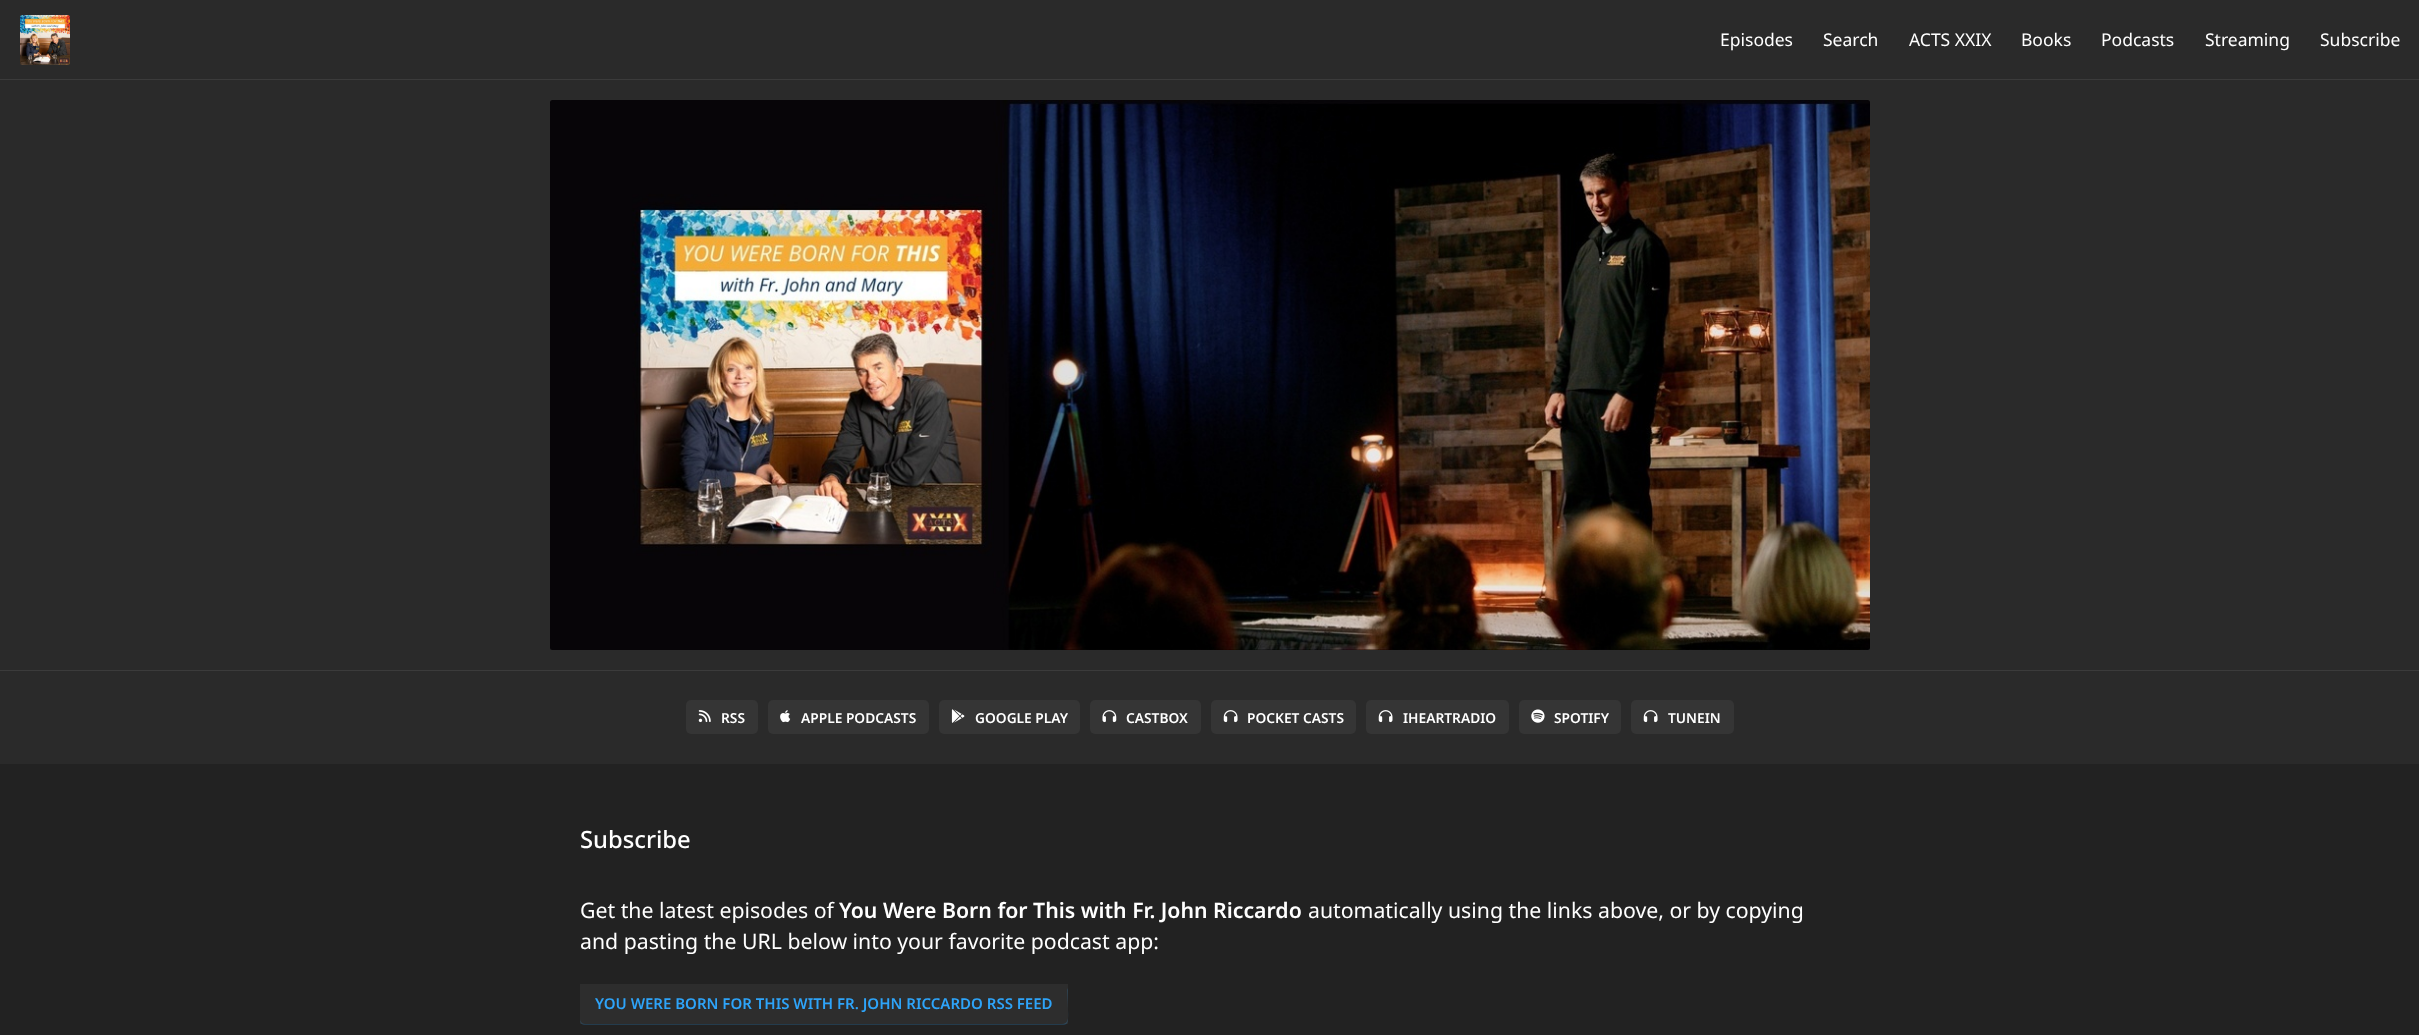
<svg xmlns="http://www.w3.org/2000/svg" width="2419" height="1035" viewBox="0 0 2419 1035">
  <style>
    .t1 { font: 17.5px Noto Sans; fill: #fff; }
    .t2 { font: 600 13.75px Noto Sans; fill: #fff; }
    .t3 { font: 500 23.75px Noto Sans; fill: #fff; }
    .t4 { font: 21.25px Noto Sans; fill: #fff; }
    .t5 { font: 600 21.25px Noto Sans; fill: #fff; }
    .t6 { font: 600 15px Noto Sans; fill: #2ea4f9; }
  </style>
  <rect width="100%" height="100%" fill="#222"/>
  <rect x="0" y="0" width="2419" height="79" fill="#2a2a2a"/>
  <rect x="0" y="79" width="2419" height="1" fill="#3b3b3b"/>
  <image x="20" y="15" width="50" height="50" href="images/1.png"/>
  <text x="1720" y="46" class="t1">Episodes</text>
  <text x="1823" y="46" class="t1">Search</text>
  <text x="1909" y="46" class="t1">ACTS XXIX</text>
  <text x="2021" y="46" class="t1">Books</text>
  <text x="2101" y="46" class="t1">Podcasts</text>
  <text x="2205" y="46" class="t1">Streaming</text>
  <text x="2320" y="46" class="t1">Subscribe</text>
  <rect x="0" y="80" width="2419" height="590" fill="#2a2a2a"/>
  <image x="550" y="100" width="1320" height="550" href="images/2.png"/>
  <rect x="0" y="671" width="2419" height="93" fill="#2a2a2a"/>
  <rect x="0" y="670" width="2419" height="1" fill="#3b3b3b"/>
  <rect x="686" y="700" width="72" height="34" rx="5" fill="#353535"/>
  <image x="698" y="710" width="13" height="13" href="images/3.png"/>
  <text x="721" y="723" class="t2">RSS</text>
  <rect x="768" y="700" width="161" height="34" rx="5" fill="#353535"/>
  <image x="780" y="710" width="11" height="13" href="images/4.png"/>
  <text x="801" y="723" class="t2">APPLE PODCASTS</text>
  <rect x="939" y="700" width="141" height="34" rx="5" fill="#353535"/>
  <image x="951" y="709" width="14" height="14" href="images/5.png"/>
  <text x="975" y="723" class="t2">GOOGLE PLAY</text>
  <rect x="1090" y="700" width="111" height="34" rx="5" fill="#353535"/>
  <image x="1102" y="710" width="15" height="13" href="images/6.png"/>
  <text x="1126" y="723" class="t2">CASTBOX</text>
  <rect x="1211" y="700" width="145" height="34" rx="5" fill="#353535"/>
  <image x="1223" y="710" width="15" height="13" href="images/7.png"/>
  <text x="1247" y="723" class="t2">POCKET CASTS</text>
  <rect x="1366" y="700" width="143" height="34" rx="5" fill="#353535"/>
  <image x="1378" y="710" width="15" height="13" href="images/7.png"/>
  <text x="1403" y="723" class="t2">IHEARTRADIO</text>
  <rect x="1519" y="700" width="102" height="34" rx="5" fill="#353535"/>
  <image x="1531" y="709" width="14" height="14" href="images/8.png"/>
  <text x="1554" y="723" class="t2">SPOTIFY</text>
  <rect x="1631" y="700" width="103" height="34" rx="5" fill="#353535"/>
  <image x="1643" y="710" width="15" height="13" href="images/7.png"/>
  <text x="1668" y="723" class="t2">TUNEIN</text>
  <text x="580" y="848" class="t3">Subscribe</text>
  <text x="580" y="918" class="t4">Get the latest episodes of</text>
  <text x="839" y="918" class="t5">You Were Born for This with Fr. John Riccardo</text>
  <text x="1308" y="918" class="t4">automatically using the links above, or by copying</text>
  <text x="580" y="949" class="t4">and pasting the URL below into your favorite podcast app:</text>
  <path d="M580 1019V1020C580 1023 582 1025 585 1025H1063C1066 1025 1068 1023 1068 1020V990L1067 988L1068 1009C1068 1013 1070 1024 1062 1024H585C582 1024 580 1021 580 1019Z" fill="#243c4d"/>
  <rect x="580" y="984" width="488" height="40" fill="#ffffff0d"/>
  <text x="595" y="1009" class="t6">YOU WERE BORN FOR THIS WITH FR. JOHN RICCARDO RSS FEED</text>
</svg>
